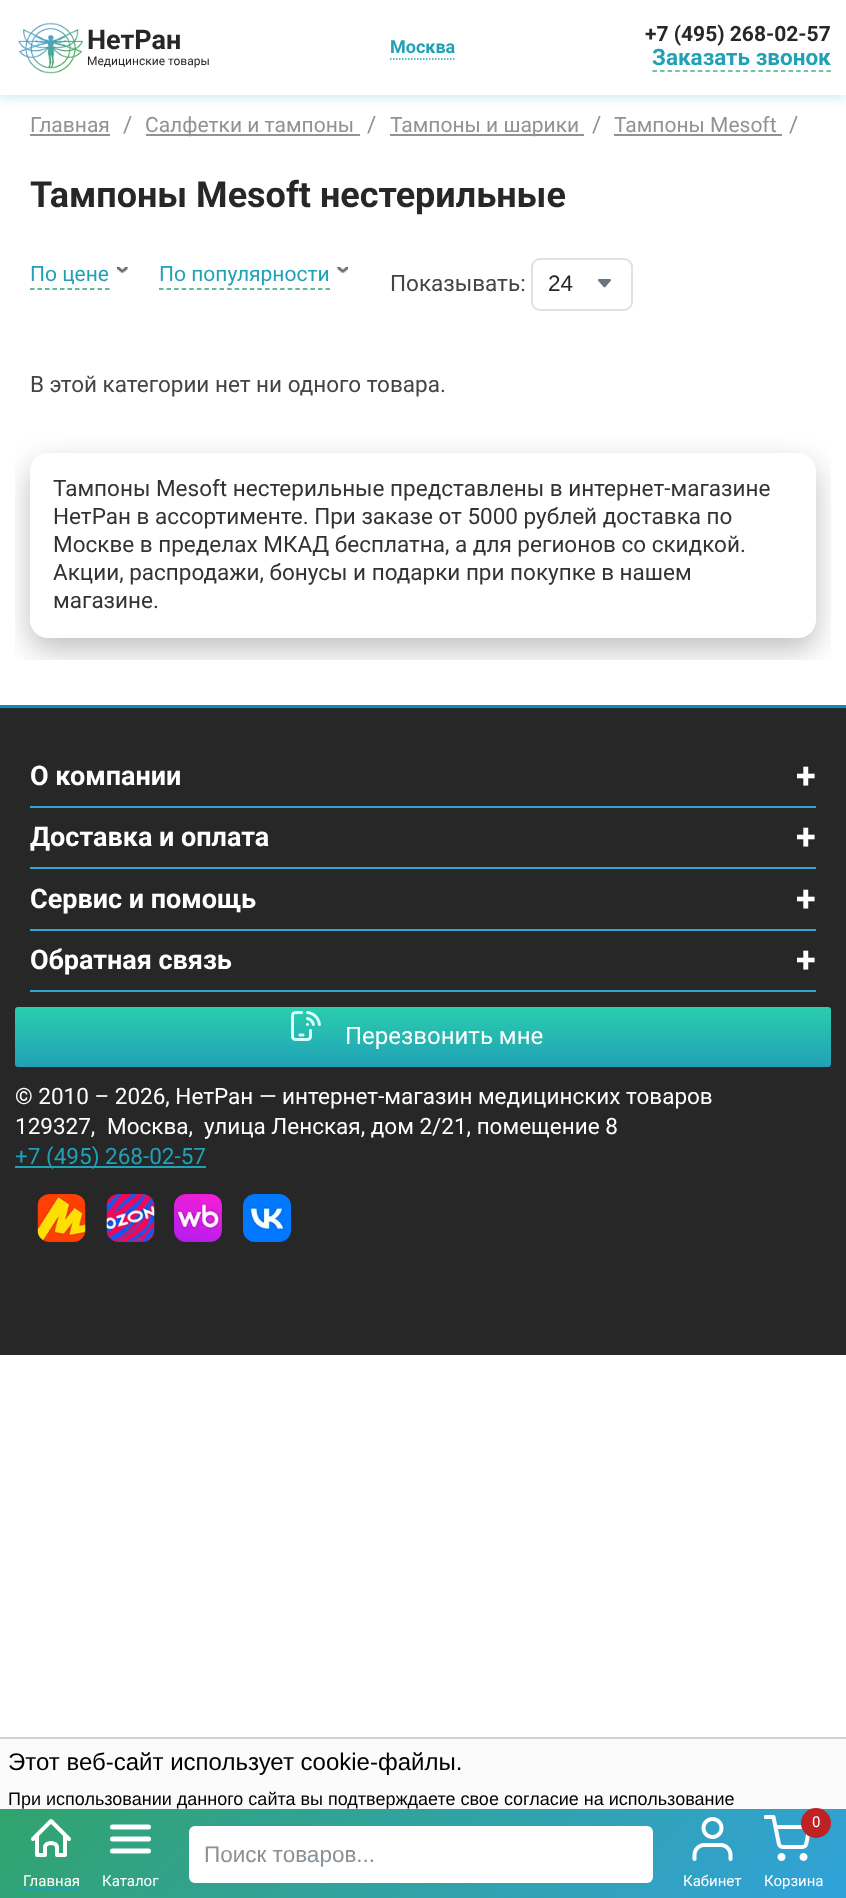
<svg xmlns="http://www.w3.org/2000/svg" width="846" height="1898" viewBox="0 0 846 1898">
  <style>
    .t1 { font: bold 27px Roboto; fill: #272727; }
    .t2 { font: 12px Roboto; fill: #272727; }
    .t3 { font: bold 18px Roboto; fill: #21a1b6; }
    .t4 { font: bold 21px Roboto; fill: #272727; }
    .t5 { font: bold 22.5px Roboto; fill: #21a1b6; }
    .t6 { font: 21px Roboto; fill: #929292; }
    .t7 { font: 22.5px Roboto; fill: #929292; }
    .t8 { font: bold 36px Roboto; fill: #272727; }
    .t9 { font: 21px Roboto; fill: #21a1b6; }
    .t10 { font: 22.5px Roboto; fill: #444; }
    .t11 { font: 22.5px Liberation Sans; fill: #272727; }
    .t12 { font: 22.5px Roboto; fill: #333; }
    .t13 { font: bold 27px Roboto; fill: #fff; }
    .t14 { font: bold 36px Roboto; fill: #fff; }
    .t15 { font: 24px Roboto; fill: #fff; }
    .t16 { font: 22.5px Roboto; fill: #fff; }
    .t17 { font: 22.5px Roboto; fill: #21a1b6; }
    .t18 { font: 24px Liberation Sans; fill: #000; }
    .t19 { font: 18px Liberation Sans; fill: #000; }
    .t20 { font: 22.5px Liberation Sans; fill: #899197; }
    .t21 { font: 15px Roboto; fill: #fff; }
  </style>
  <defs>
    <clipPath id="clip1"><rect x="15" y="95" width="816" height="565"/></clipPath>
    <linearGradient id="g1" gradientUnits="userSpaceOnUse" x1="423" y1="1007" x2="423" y2="1067"><stop offset="0" stop-color="#2acead"/><stop offset="1" stop-color="#21a1b6"/></linearGradient>
    <linearGradient id="g2" gradientUnits="userSpaceOnUse" x1="189" y1="1620" x2="657" y2="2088"><stop offset="0" stop-color="#31a36d"/><stop offset="1" stop-color="#31a2da"/></linearGradient>
  </defs>
  <rect width="100%" height="100%" fill="#fff"/>
  <rect x="0" y="3" width="846" height="95" fill="#019fa733" filter="blur(6px)"/>
  <rect x="0" y="0" width="846" height="95" fill="#fff"/>
  <image x="18" y="22" width="65" height="52" href="images/1.png"/>
  <text x="87" y="49" class="t1">НетРан</text>
  <text x="87" y="65" class="t2">Медицинские товары</text>
  <text x="390" y="53" class="t3">Москва</text>
  <path d="M390 59H456" fill="none" stroke="#21a1b6" stroke-width="1.5" stroke-dasharray="1.5 1.5"/>
  <text x="645" y="41" class="t4">+7 (495) 268-02-57</text>
  <path d="M652.5 71H831" fill="none" stroke="#4ba997" stroke-width="1.5" stroke-dasharray="4.5 3.06"/>
  <text x="652" y="65" class="t5">Заказать звонок</text>
  <text x="30" y="132" class="t6">Главная</text>
  <rect x="30" y="134" width="80" height="2" fill="#929292"/>
  <text x="123" y="132" class="t7">/</text>
  <rect x="146" y="134" width="214" height="2" fill="#929292"/>
  <text x="145" y="132" class="t6">Салфетки и тампоны</text>
  <text x="367" y="132" class="t7">/</text>
  <rect x="390" y="134" width="194" height="2" fill="#929292"/>
  <text x="390" y="132" class="t6">Тампоны и шарики</text>
  <text x="592" y="132" class="t7">/</text>
  <text x="614" y="132" class="t6">Тампоны Mesoft</text>
  <rect x="614" y="134" width="168" height="2" fill="#929292"/>
  <text x="789" y="132" class="t7">/</text>
  <text x="30" y="207" class="t8">Тампоны Mesoft нестерильные</text>
  <path d="M30 289H109.5" fill="none" stroke="#31a36d" stroke-width="1.5" stroke-dasharray="4.5 3"/>
  <text x="30" y="281" class="t9">По цене</text>
  <image x="117" y="267" width="11" height="6" href="images/2.png"/>
  <path d="M159 289H330" fill="none" stroke="#31a36d" stroke-width="1.5" stroke-dasharray="4.5 3.07"/>
  <text x="159" y="281" class="t9">По популярности</text>
  <image x="337" y="267" width="11" height="6" href="images/3.png"/>
  <text x="390" y="291" class="t10">Показывать:</text>
  <image x="598" y="279" width="13" height="9" href="images/4.png"/>
  <rect x="532" y="259" width="100" height="51" rx="8" fill="none" stroke="#dee2e6" stroke-width="2"/>
  <text x="548" y="291" class="t11">24</text>
  <text x="30" y="392" class="t10">В этой категории нет ни одного товара.</text>
  <g clip-path="url(#clip1)">
    <rect x="30" y="465" width="786" height="185" rx="18" fill="#00000040" filter="blur(15px)"/>
  </g>
  <rect x="30" y="453" width="786" height="185" rx="18" fill="#fff"/>
  <text x="53" y="496" class="t12">Тампоны Mesoft нестерильные представлены в интернет-магазине</text>
  <text x="53" y="524" class="t12">НетРан в ассортименте. При заказе от 5000 рублей доставка по</text>
  <text x="53" y="552" class="t12">Москве в пределах МКАД бесплатна, а для регионов со скидкой.</text>
  <text x="53" y="580" class="t12">Акции, распродажи, бонусы и подарки при покупке в нашем</text>
  <text x="53" y="608" class="t12">магазине.</text>
  <rect x="0" y="708" width="846" height="647" fill="#272727"/>
  <rect x="0" y="705" width="846" height="3" fill="#0690c1"/>
  <rect x="30" y="806" width="786" height="2" fill="#31a3d5"/>
  <text x="30" y="785" class="t13">О компании</text>
  <text x="796" y="788" class="t14">+</text>
  <rect x="30" y="867" width="786" height="2" fill="#31a3d5"/>
  <text x="30" y="846" class="t13">Доставка и оплата</text>
  <text x="796" y="849" class="t14">+</text>
  <rect x="30" y="929" width="786" height="2" fill="#31a3d5"/>
  <text x="30" y="908" class="t13">Сервис и помощь</text>
  <text x="796" y="911" class="t14">+</text>
  <rect x="30" y="990" width="786" height="2" fill="#31a3d5"/>
  <text x="30" y="969" class="t13">Обратная связь</text>
  <text x="796" y="972" class="t14">+</text>
  <rect x="15" y="1007" width="816" height="60" rx="3" fill="url(#g1)"/>
  <image x="291" y="1011" width="30" height="30" href="images/5.png"/>
  <text x="345" y="1044" class="t15">Перезвонить мне</text>
  <text x="15" y="1104" class="t16">© 2010 – 2026, НетРан — интернет-магазин медицинских товаров</text>
  <text x="15" y="1134" class="t16">129327,</text>
  <text x="107" y="1134" class="t16">Москва,</text>
  <text x="204" y="1134" class="t16">улица Ленская, дом 2/21, помещение 8</text>
  <rect x="15" y="1166" width="191" height="2" fill="#21a1b6"/>
  <text x="15" y="1164" class="t17">+7 (495) 268-02-57</text>
  <image x="37" y="1194" width="49" height="48" href="images/6.png"/>
  <image x="106" y="1194" width="49" height="48" href="images/7.png"/>
  <image x="174" y="1194" width="48" height="48" href="images/8.png"/>
  <image x="243" y="1194" width="48" height="48" href="images/9.png"/>
  <rect x="0" y="1739" width="846" height="70" fill="#fbfbfb"/>
  <rect x="0" y="1737" width="846" height="2" fill="#d2d2d2"/>
  <text x="8" y="1770" class="t18">Этот веб-сайт использует cookie-файлы.</text>
  <text x="8" y="1805" class="t19">При использовании данного сайта вы подтверждаете свое согласие на использование</text>
  <rect x="0" y="1809" width="846" height="89" fill="url(#g2)"/>
  <rect x="189" y="1826" width="464" height="57" rx="6" fill="#fff"/>
  <text x="204" y="1862" class="t20">Поиск товаров...</text>
  <image x="764" y="1815" width="46" height="46" href="images/10.png"/>
  <circle cx="816" cy="1823" r="15" fill="#bf2222"/>
  <text x="812" y="1827" class="t21">0</text>
  <text x="764" y="1886" class="t21">Корзина</text>
  <path d="M33 1839L51 1821L69 1839M37 1835V1855H45V1847C45 1845 47.5 1843 51 1843C54.5 1843 57 1845 57 1847V1855H65V1835" fill="none" stroke="#fff" stroke-width="4" stroke-linecap="round" stroke-linejoin="round"/>
  <text x="23" y="1886" class="t21">Главная</text>
  <rect x="23" y="1887" width="57" height="2" fill="#21a1b6"/>
  <path d="M112.5 1827H148.5M112.5 1839H148.5M112.5 1851H148.5" fill="none" stroke="#fff" stroke-width="5" stroke-linecap="round" stroke-linejoin="round"/>
  <text x="102" y="1886" class="t21">Каталог</text>
  <image x="692" y="1817" width="41" height="44" href="images/11.png"/>
  <text x="683" y="1886" class="t21">Кабинет</text>
</svg>
